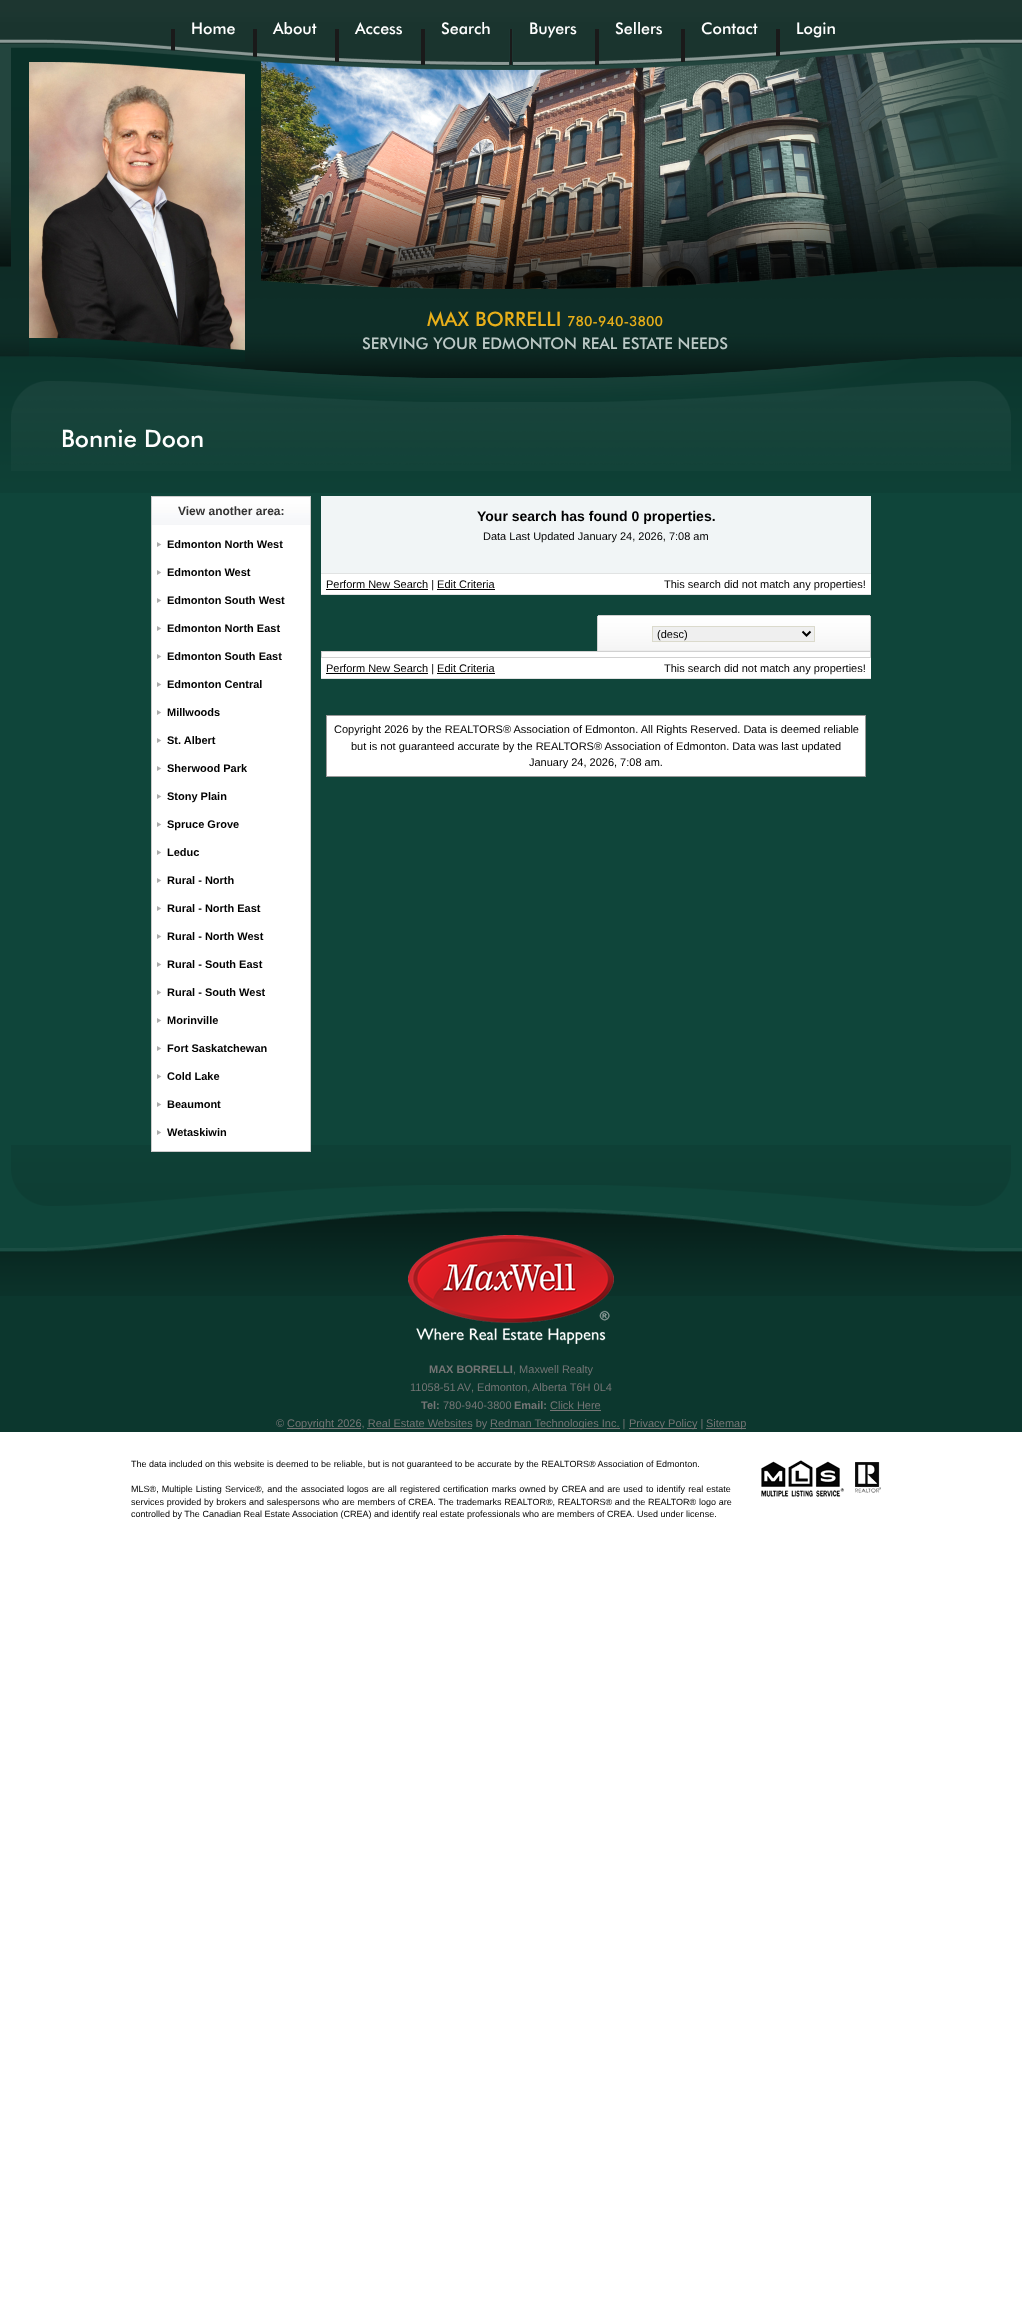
<svg xmlns="http://www.w3.org/2000/svg" width="1022" height="2297" viewBox="0 0 1022 2297">
  <style>
    .t1 { font: 500 16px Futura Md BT; fill: #fff; }
    .t2 { font: 500 20px Futura Md BT; fill: #e8af1a; }
    .t3 { font: 500 14px Futura Md BT; fill: #e8af1a; }
    .t4 { font: 500 16px Futura Md BT; fill: #bcc9c6; }
    .t5 { font: 500 24px Futura Md BT; fill: #fff; }
    .t6 { font: bold 12px Liberation Sans; fill: #333; }
    .t7 { font: bold 11px Liberation Sans; fill: #000; }
    .t8 { font: bold 14px Liberation Sans; fill: #000; }
    .t9 { font: 11px Liberation Sans; fill: #000; }
    .t10 { font: bold 11px Liberation Sans; fill: #757575; }
    .t11 { font: 11px Liberation Sans; fill: #757575; }
    .t12 { font: 9px Liberation Sans; fill: #000; }
  </style>
  <rect width="100%" height="100%" fill="#fff"/>
  <rect x="0" y="493" width="1022" height="715" fill="#0f453a"/>
  <image x="0" y="0" width="1022" height="493" href="images/1.png"/>
  <image x="11" y="356" width="1000" height="115" href="images/2.png"/>
  <image x="11" y="1145" width="1000" height="61" href="images/3.png"/>
  <image x="11" y="0" width="1000" height="66" href="images/4.png"/>
  <rect x="171" y="29" width="4" height="22" fill="#1a1a1a"/>
  <text x="191" y="34" class="t1">Home</text>
  <rect x="253" y="29" width="4" height="37" fill="#1a1a1a"/>
  <text x="273" y="34" class="t1">About</text>
  <rect x="335" y="29" width="4" height="37" fill="#1a1a1a"/>
  <text x="355" y="34" class="t1">Access</text>
  <rect x="421" y="29" width="4" height="37" fill="#1a1a1a"/>
  <text x="441" y="34" class="t1">Search</text>
  <image x="509" y="29" width="4" height="37" href="images/5.png"/>
  <text x="529" y="34" class="t1">Buyers</text>
  <rect x="595" y="29" width="4" height="37" fill="#1a1a1a"/>
  <text x="615" y="34" class="t1">Sellers</text>
  <rect x="681" y="29" width="4" height="37" fill="#1a1a1a"/>
  <text x="701" y="34" class="t1">Contact</text>
  <rect x="776" y="29" width="4" height="28" fill="#1a1a1a"/>
  <text x="796" y="34" class="t1">Login</text>
  <image x="11" y="44" width="1011" height="334" href="images/6.png"/>
  <image x="29" y="62" width="216" height="289" href="images/7.png"/>
  <image x="29" y="62" width="216" height="300" href="images/8.png"/>
  <text x="427" y="326" class="t2">MAX BORRELLI</text>
  <text x="567" y="326" class="t3">780-940-3800</text>
  <text x="362" y="349" class="t4">SERVING YOUR EDMONTON REAL ESTATE NEEDS</text>
  <text x="61" y="447" class="t5">Bonnie Doon</text>
  <rect x="151.5" y="496.5" width="159" height="655" fill="none" stroke="#ccc"/>
  <image x="152" y="497" width="158" height="28" href="images/9.png"/>
  <text x="178" y="515" class="t6">View another area:</text>
  <rect x="152" y="525" width="158" height="626" fill="#fff"/>
  <image x="157" y="542" width="5" height="5" href="images/10.png"/>
  <text x="167" y="548" class="t7">Edmonton North West</text>
  <image x="157" y="570" width="5" height="5" href="images/10.png"/>
  <text x="167" y="576" class="t7">Edmonton West</text>
  <image x="157" y="598" width="5" height="5" href="images/10.png"/>
  <text x="167" y="604" class="t7">Edmonton South West</text>
  <image x="157" y="626" width="5" height="5" href="images/10.png"/>
  <text x="167" y="632" class="t7">Edmonton North East</text>
  <image x="157" y="654" width="5" height="5" href="images/10.png"/>
  <text x="167" y="660" class="t7">Edmonton South East</text>
  <image x="157" y="682" width="5" height="5" href="images/10.png"/>
  <text x="167" y="688" class="t7">Edmonton Central</text>
  <image x="157" y="710" width="5" height="5" href="images/10.png"/>
  <text x="167" y="716" class="t7">Millwoods</text>
  <image x="157" y="738" width="5" height="5" href="images/10.png"/>
  <text x="167" y="744" class="t7">St. Albert</text>
  <image x="157" y="766" width="5" height="5" href="images/10.png"/>
  <text x="167" y="772" class="t7">Sherwood Park</text>
  <image x="157" y="794" width="5" height="5" href="images/10.png"/>
  <text x="167" y="800" class="t7">Stony Plain</text>
  <image x="157" y="822" width="5" height="5" href="images/10.png"/>
  <text x="167" y="828" class="t7">Spruce Grove</text>
  <image x="157" y="850" width="5" height="5" href="images/10.png"/>
  <text x="167" y="856" class="t7">Leduc</text>
  <image x="157" y="878" width="5" height="5" href="images/10.png"/>
  <text x="167" y="884" class="t7">Rural - North</text>
  <image x="157" y="906" width="5" height="5" href="images/10.png"/>
  <text x="167" y="912" class="t7">Rural - North East</text>
  <image x="157" y="934" width="5" height="5" href="images/10.png"/>
  <text x="167" y="940" class="t7">Rural - North West</text>
  <image x="157" y="962" width="5" height="5" href="images/10.png"/>
  <text x="167" y="968" class="t7">Rural - South East</text>
  <image x="157" y="990" width="5" height="5" href="images/10.png"/>
  <text x="167" y="996" class="t7">Rural - South West</text>
  <image x="157" y="1018" width="5" height="5" href="images/10.png"/>
  <text x="167" y="1024" class="t7">Morinville</text>
  <image x="157" y="1046" width="5" height="5" href="images/10.png"/>
  <text x="167" y="1052" class="t7">Fort Saskatchewan</text>
  <image x="157" y="1074" width="5" height="5" href="images/10.png"/>
  <text x="167" y="1080" class="t7">Cold Lake</text>
  <image x="157" y="1102" width="5" height="5" href="images/10.png"/>
  <text x="167" y="1108" class="t7">Beaumont</text>
  <image x="157" y="1130" width="5" height="5" href="images/10.png"/>
  <text x="167" y="1136" class="t7">Wetaskiwin</text>
  <rect x="321" y="496" width="550" height="77" fill="#f1f5f6"/>
  <text x="477" y="521" class="t8">Your search has found 0 properties.</text>
  <text x="483" y="540" class="t9">Data Last Updated January 24, 2026, 7:08 am</text>
  <rect x="321" y="573" width="550" height="1" fill="#e1e3e3"/>
  <rect x="321" y="574" width="550" height="20" fill="#fff"/>
  <rect x="326" y="589" width="102" height="1" fill="#000"/>
  <text x="326" y="588" class="t9">Perform New Search | Edit Criteria</text>
  <rect x="437" y="589" width="58" height="1" fill="#000"/>
  <text x="664" y="588" class="t9">This search did not match any properties!</text>
  <rect x="321" y="594" width="550" height="1" fill="#e1e3e3"/>
  <rect x="598" y="615" width="272" height="1" fill="#d1d1d1"/>
  <rect x="597" y="616" width="1" height="35" fill="#d1d1d1"/>
  <rect x="598" y="650" width="272" height="1" fill="#ececec"/>
  <image x="598" y="616" width="272" height="34" href="images/11.png"/>
  <rect x="652.5" y="626.5" width="162" height="15" fill="#efefef" stroke="#dbdacc"/>
  <path d="M802.5 631.5L806.5 635.5L810.5 631.5" fill="none" stroke="#000" stroke-width="2"/>
  <text x="657" y="638" class="t9">(desc)</text>
  <rect x="870" y="616" width="1" height="35" fill="#d1d1d1"/>
  <rect x="321" y="652" width="550" height="5" fill="#fefefe"/>
  <rect x="321" y="651" width="550" height="1" fill="#d1d1d1"/>
  <rect x="321" y="652" width="1" height="5" fill="#d1d1d1"/>
  <rect x="870" y="652" width="1" height="5" fill="#d1d1d1"/>
  <rect x="321" y="657" width="550" height="1" fill="#d1d1d1"/>
  <rect x="321" y="658" width="550" height="20" fill="#fff"/>
  <rect x="326" y="673" width="102" height="1" fill="#000"/>
  <text x="326" y="672" class="t9">Perform New Search | Edit Criteria</text>
  <rect x="437" y="673" width="58" height="1" fill="#000"/>
  <text x="664" y="672" class="t9">This search did not match any properties!</text>
  <rect x="321" y="678" width="550" height="1" fill="#e1e3e3"/>
  <rect x="326" y="715" width="540" height="62" fill="#999"/>
  <rect x="327" y="716" width="538" height="60" fill="#fff"/>
  <text x="334" y="733" class="t9">Copyright 2026 by the REALTORS® Association of Edmonton. All Rights Reserved. Data is deemed reliable</text>
  <text x="351" y="750" class="t9">but is not guaranteed accurate by the REALTORS® Association of Edmonton. Data was last updated</text>
  <text x="529" y="766" class="t9">January 24, 2026, 7:08 am.</text>
  <rect x="0" y="1296" width="1022" height="136" fill="#0c372e"/>
  <image x="0" y="1208" width="1022" height="88" href="images/12.png"/>
  <image x="47" y="1208" width="928" height="44" href="images/13.png"/>
  <image x="408" y="1235" width="206" height="109" href="images/14.png"/>
  <text x="429" y="1373" class="t10">MAX BORRELLI</text>
  <text x="513" y="1373" class="t11">, Maxwell Realty</text>
  <text x="410" y="1391" word-spacing="-1" class="t11">11058-51 AV</text>
  <text x="471" y="1391" class="t11">, Edmonton,</text>
  <text x="532" y="1391" class="t11">Alberta T6H 0L4</text>
  <text x="421" y="1409" class="t10">Tel:</text>
  <text x="443" y="1409" class="t11">780-940-3800</text>
  <text x="514" y="1409" class="t10">Email:</text>
  <text x="550" y="1409" class="t11">Click Here</text>
  <rect x="550" y="1410" width="51" height="1" fill="#757575"/>
  <text x="276" y="1427" class="t11">©</text>
  <rect x="287" y="1428" width="74" height="1" fill="#757575"/>
  <text x="287" y="1427" class="t11">Copyright 2026, Real Estate Websites by</text>
  <rect x="490" y="1428" width="130" height="1" fill="#757575"/>
  <text x="490" y="1427" class="t11">Redman Technologies Inc. |</text>
  <rect x="629" y="1428" width="68" height="1" fill="#757575"/>
  <text x="629" y="1427" class="t11">Privacy Policy |</text>
  <rect x="706" y="1428" width="40" height="1" fill="#757575"/>
  <text x="706" y="1427" class="t11">Sitemap</text>
  <rect x="367" y="1428" width="105" height="1" fill="#757575"/>
  <text x="131" y="1467" class="t12">The data included on this website is deemed to be reliable, but is not guaranteed to be accurate by the REALTORS® Association of Edmonton.</text>
  <text x="131" y="1492" word-spacing="0.6" class="t12">MLS®, Multiple Listing Service®, and the associated logos are all registered certification marks owned by CREA and are used to identify real estate</text>
  <text x="131" y="1505" word-spacing="0.25" class="t12">services provided by brokers and salespersons who are members of CREA. The trademarks REALTOR®, REALTORS® and the REALTOR® logo are</text>
  <text x="131" y="1517" class="t12">controlled by The Canadian Real Estate Association (CREA) and identify real estate professionals who are members of CREA. Used under license.</text>
  <image x="761" y="1460" width="120" height="37" href="images/15.png"/>
</svg>
